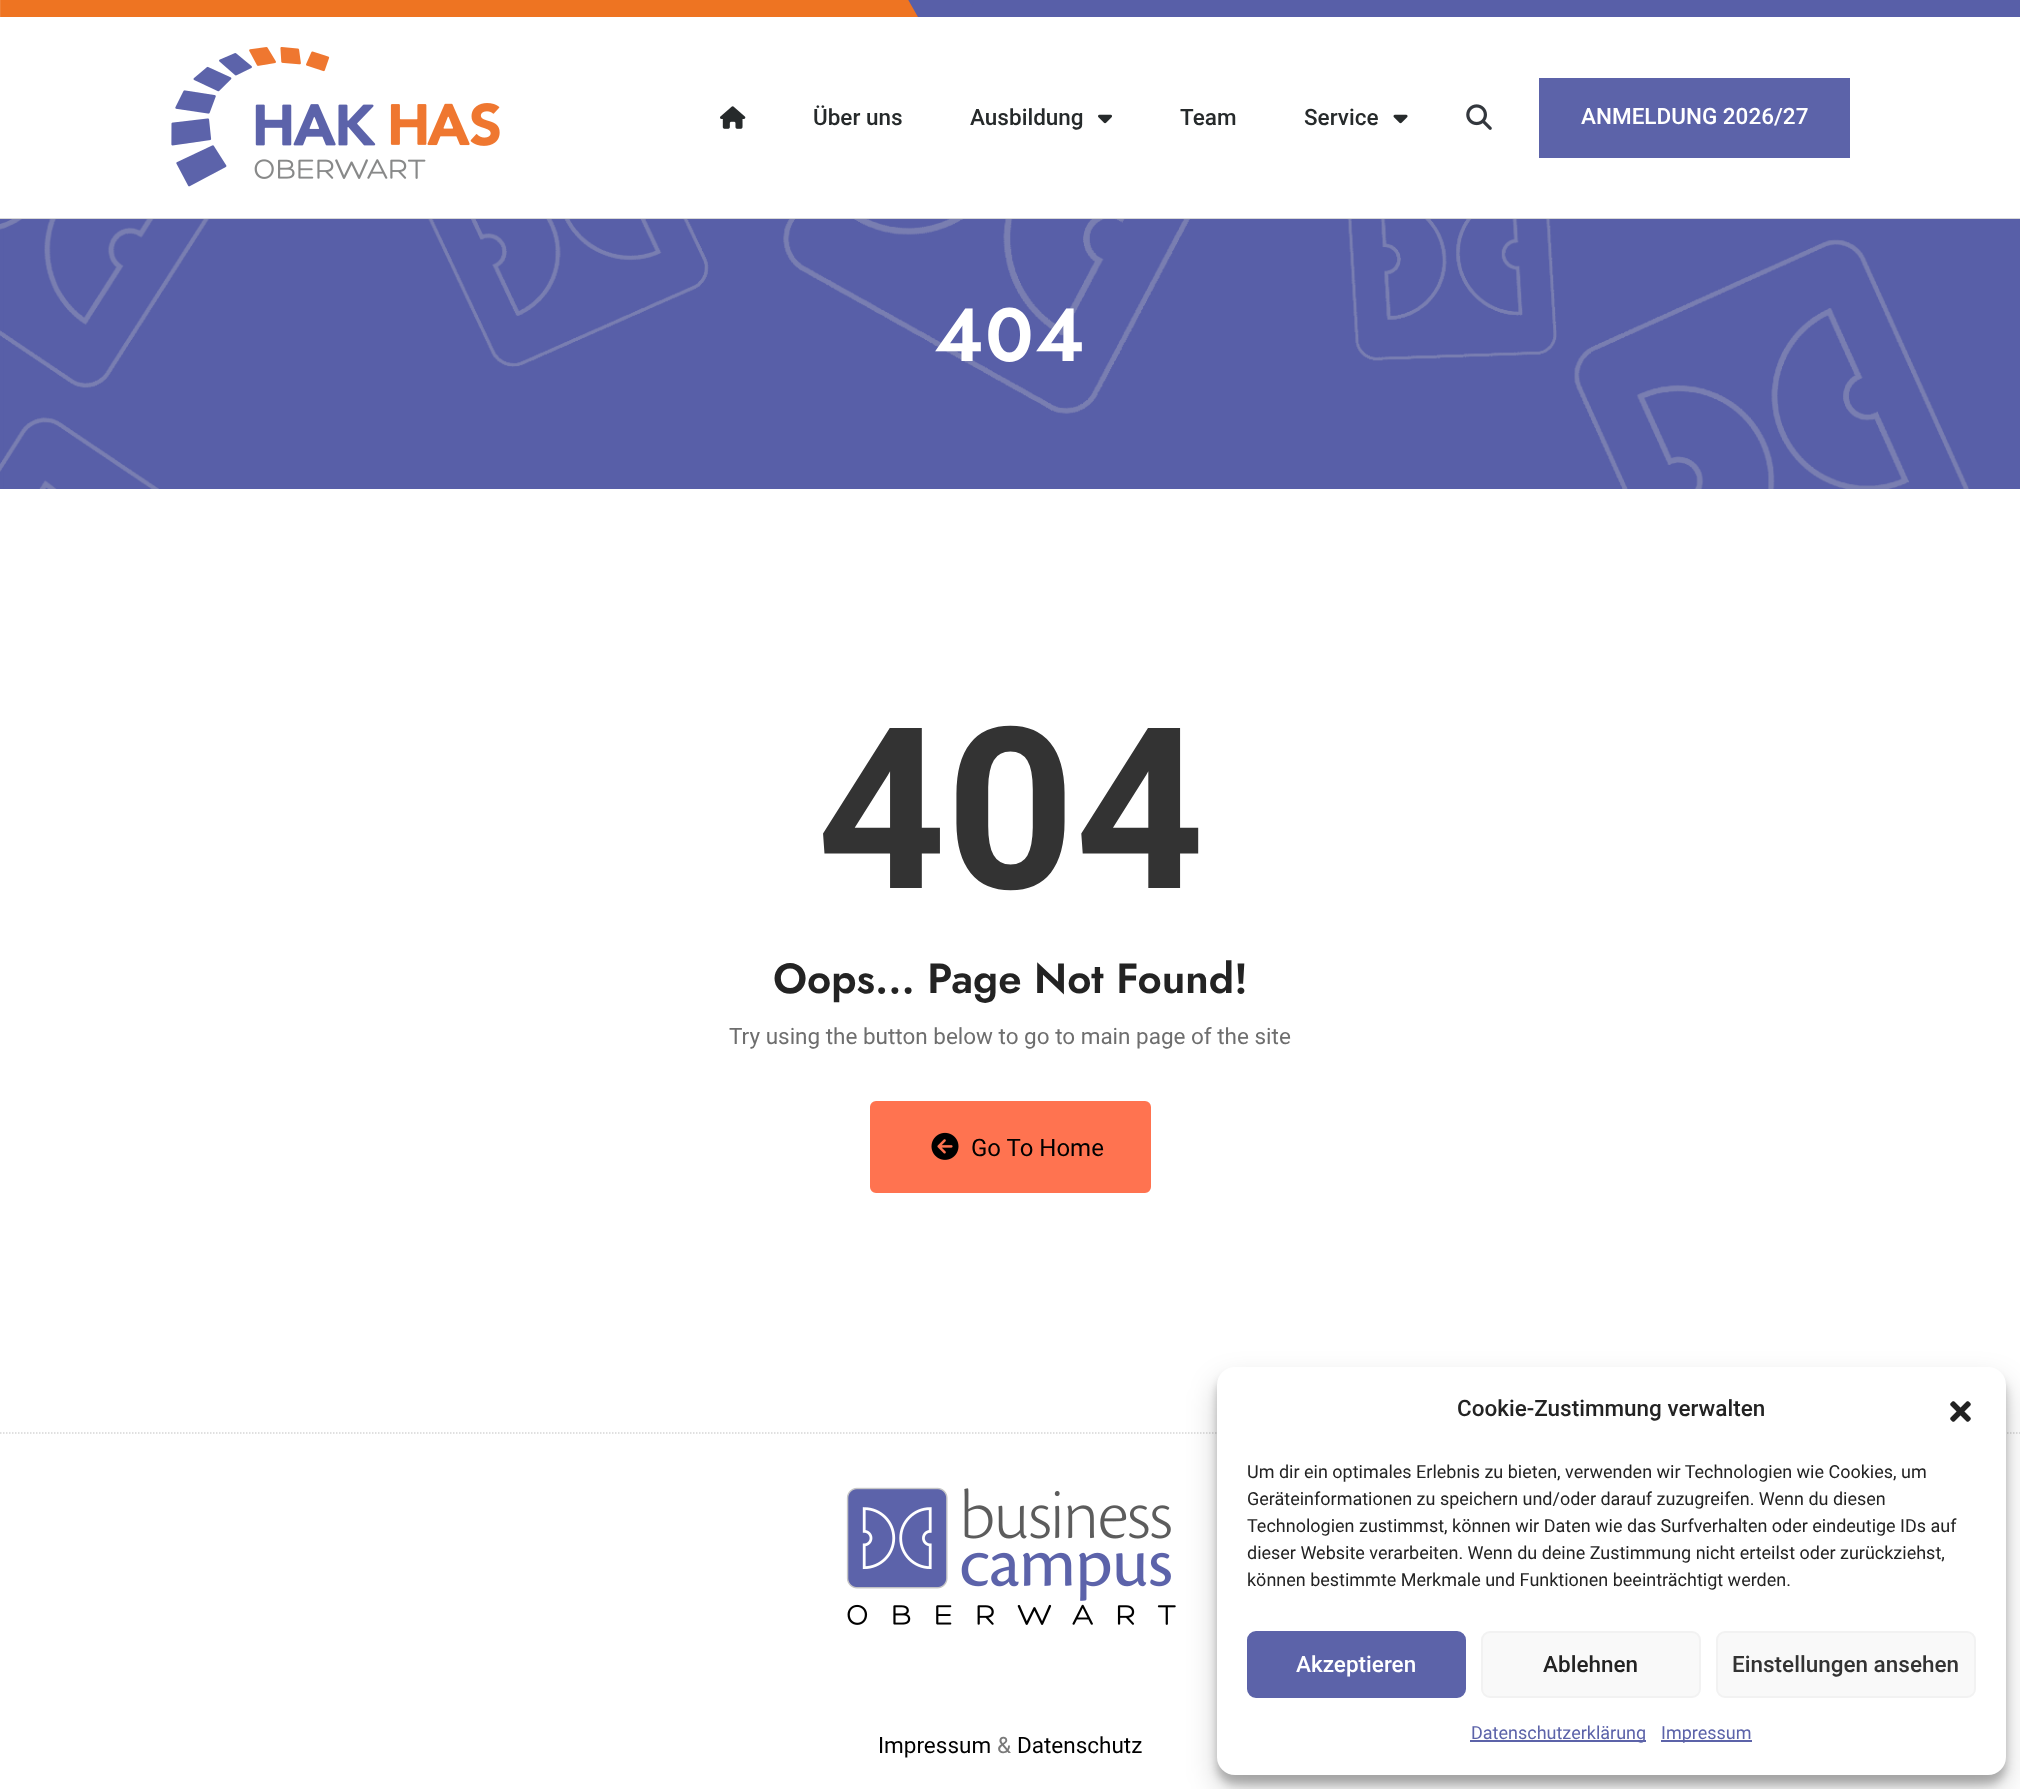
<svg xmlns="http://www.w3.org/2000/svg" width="2020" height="1789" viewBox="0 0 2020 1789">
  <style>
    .t1 { font: 500 22.5px Roboto; fill: #262a2b; }
    .t2 { font: 500 22.5px Roboto; fill: #fff; }
    .t3 { font: 600 75px Jost; letter-spacing: 1.5px; fill: #fff; }
    .t4 { font: bold 225px Roboto; fill: #333; }
    .t5 { font: 600 42px Jost; fill: #232323; }
    .t6 { font: 22.5px Roboto; fill: #6e6e6e; }
    .t7 { font: 24px Roboto; fill: #000; }
    .t8 { font: 500 22.5px Roboto; fill: #232323; }
    .t9 { font: 18px Roboto; fill: #232323; }
    .t10 { font: 500 22.5px Roboto; fill: #333; }
    .t11 { font: 18px Roboto; fill: #5c63a9; }
    .t12 { font: 22.5px Roboto; fill: #000; }
    .t13 { font: 22.5px Roboto; fill: #7a7a7a; }
  </style>
  <rect width="100%" height="100%" fill="#fff"/>
  <image x="0" y="0" width="2020" height="17" href="images/1.png"/>
  <rect x="0" y="218" width="2020" height="1" fill="#d8d8d8"/>
  <image x="171" y="47" width="329" height="140" href="images/2.png"/>
  <image x="720" y="106" width="26" height="23" href="images/3.png"/>
  <text x="813" y="125" class="t1">Über uns</text>
  <text x="970" y="125" class="t1">Ausbildung</text>
  <image x="1098" y="114" width="14" height="10" href="images/4.png"/>
  <text x="1180" y="125" class="t1">Team</text>
  <text x="1304" y="125" class="t1">Service</text>
  <image x="1393" y="114" width="15" height="10" href="images/5.png"/>
  <image x="1466" y="104" width="26" height="26" href="images/6.png"/>
  <rect x="1539" y="78" width="311" height="80" fill="#5c63a9"/>
  <text x="1581" y="124" class="t2">ANMELDUNG 2026/27</text>
  <rect x="0" y="219" width="2020" height="270" fill="#585fa8"/>
  <image x="0" y="219" width="1969" height="270" href="images/7.png"/>
  <text x="934" y="361" class="t3">404</text>
  <text x="817" y="888" class="t4">404</text>
  <text x="773" y="993" class="t5">Oops... Page Not Found!</text>
  <text x="729" y="1044" class="t6">Try using the button below to go to main page of the site</text>
  <rect x="871" y="1102" width="279" height="90" rx="5" fill="#ff7350" stroke="#ff7350" stroke-width="2"/>
  <image x="931" y="1132" width="28" height="28" href="images/8.png"/>
  <text x="971" y="1156" class="t7">Go To Home</text>
  <path d="M0 1433H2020.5" fill="none" stroke="#d6d6d6" stroke-width="1.5" stroke-dasharray="1.5 1.5"/>
  <rect x="1217" y="1376" width="789" height="408" rx="18" fill="#0000003b" filter="blur(4.5px)"/>
  <image x="846" y="1487" width="330" height="138" href="images/10.png"/>
  <rect x="1217" y="1382" width="789" height="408" rx="18" fill="#00000030" filter="blur(15px)"/>
  <rect x="1217" y="1367" width="789" height="408" rx="18" fill="#fff"/>
  <text x="1457" y="1416" class="t8">Cookie-Zustimmung verwalten</text>
  <image x="1950" y="1401" width="21" height="21" href="images/9.png"/>
  <text x="1247" y="1478" class="t9">Um dir ein optimales Erlebnis zu bieten, verwenden wir Technologien wie Cookies, um</text>
  <text x="1247" y="1505" class="t9">Geräteinformationen zu speichern und/oder darauf zuzugreifen. Wenn du diesen</text>
  <text x="1247" y="1532" class="t9">Technologien zustimmst, können wir Daten wie das Surfverhalten oder eindeutige IDs auf</text>
  <text x="1247" y="1559" class="t9">dieser Website verarbeiten. Wenn du deine Zustimmung nicht erteilst oder zurückziehst,</text>
  <text x="1247" y="1586" class="t9">können bestimmte Merkmale und Funktionen beeinträchtigt werden.</text>
  <rect x="1248" y="1632" width="217" height="65" rx="8" fill="#5c63a9" stroke="#5c63a9" stroke-width="2"/>
  <text x="1296" y="1672" class="t2">Akzeptieren</text>
  <rect x="1482" y="1632" width="218" height="65" rx="8" fill="#f9f9f9" stroke="#f2f2f2" stroke-width="2"/>
  <text x="1543" y="1672" class="t8">Ablehnen</text>
  <rect x="1717" y="1632" width="258" height="65" rx="8" fill="#f9f9f9" stroke="#f2f2f2" stroke-width="2"/>
  <text x="1732" y="1672" class="t10">Einstellungen ansehen</text>
  <rect x="1470" y="1740" width="176" height="2" fill="#5c63a9"/>
  <text x="1471" y="1739" class="t11">Datenschutzerklärung</text>
  <rect x="1661" y="1740" width="91" height="2" fill="#5c63a9"/>
  <text x="1661" y="1739" class="t11">Impressum</text>
  <text x="878" y="1753" class="t12">Impressum</text>
  <text x="997" y="1753" class="t13">&amp;</text>
  <text x="1017" y="1753" class="t12">Datenschutz</text>
</svg>
